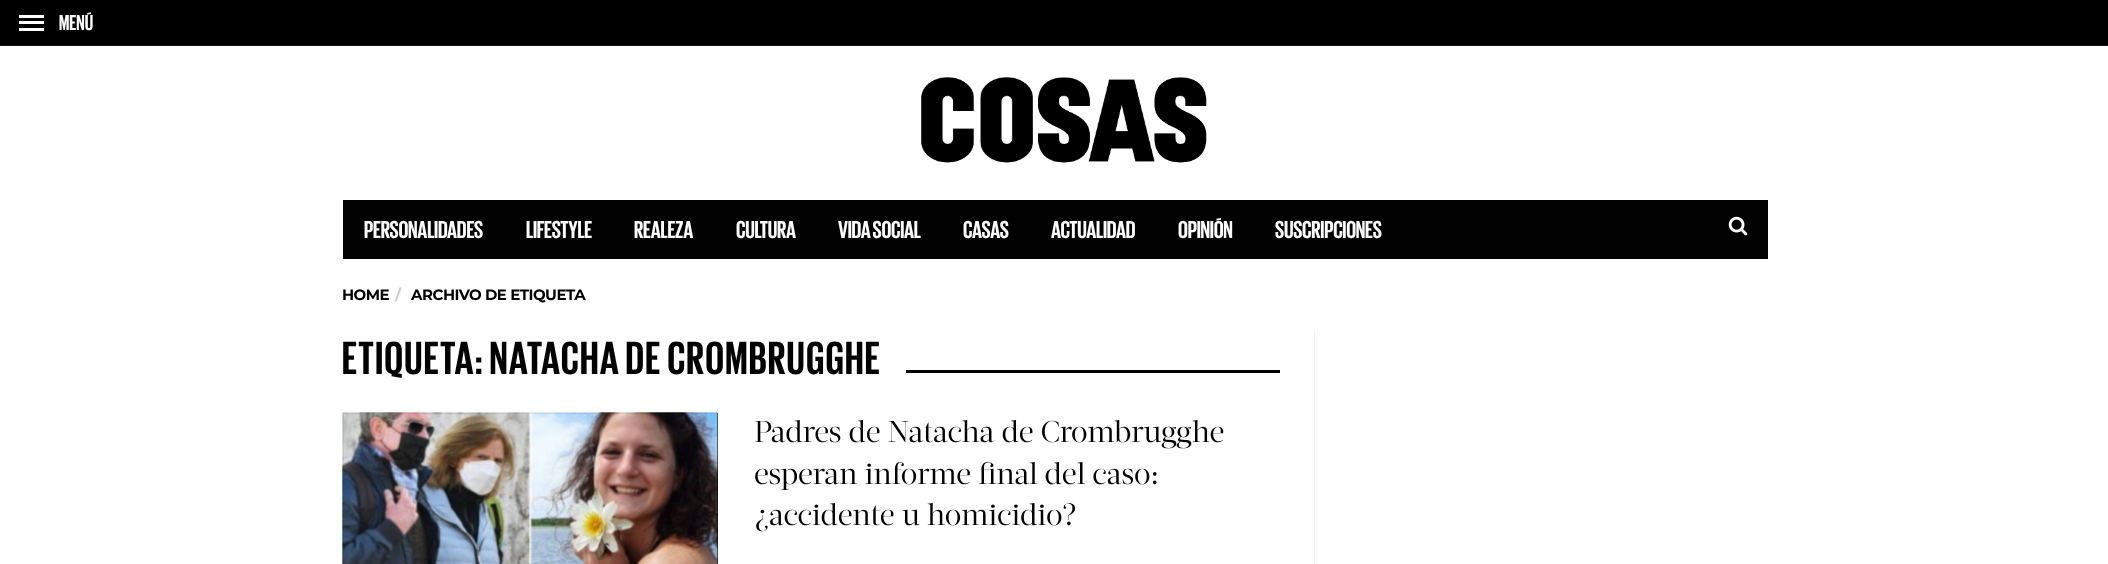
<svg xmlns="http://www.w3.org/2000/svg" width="2108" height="564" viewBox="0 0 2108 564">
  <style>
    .t1 { font: bold 22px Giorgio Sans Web; fill: #fcfcfc; }
    .t2 { font: bold 25px Giorgio Sans Web; letter-spacing: -0.25px; fill: #fcfcfc; }
    .t3 { font: bold 15px Montserrat; letter-spacing: -0.5px; fill: #010101; }
    .t4 { font: bold 15px Montserrat; letter-spacing: -0.5px; fill: #ccc; }
    .t5 { font: bold 47.5px Giorgio Sans Web; letter-spacing: 1.25px; fill: #010101; }
    .t6 { font: 30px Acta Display; fill: #010101; }
  </style>
  <rect width="100%" height="100%" fill="#fff"/>
  <rect x="0" y="45" width="2108" height="1" fill="#151515"/>
  <rect x="0" y="0" width="2108" height="45" fill="#000"/>
  <rect x="19" y="15" width="25" height="3" fill="#fff"/>
  <rect x="19" y="21" width="25" height="3" fill="#fff"/>
  <rect x="19" y="28" width="25" height="3" fill="#fff"/>
  <text x="59" y="30" class="t1">MENÚ</text>
  <image x="921" y="77" width="286" height="86" href="images/1.png"/>
  <rect x="343" y="200" width="1425" height="59" fill="#010101"/>
  <text x="364" y="238" class="t2">PERSONALIDADES</text>
  <text x="526" y="238" class="t2">LIFESTYLE</text>
  <text x="634" y="238" class="t2">REALEZA</text>
  <text x="736" y="238" class="t2">CULTURA</text>
  <text x="838" y="238" class="t2">VIDA SOCIAL</text>
  <text x="963" y="238" class="t2">CASAS</text>
  <text x="1051" y="238" class="t2">ACTUALIDAD</text>
  <text x="1178" y="238" class="t2">OPINIÓN</text>
  <text x="1275" y="238" class="t2">SUSCRIPCIONES</text>
  <image x="1728" y="216" width="20" height="20" href="images/2.png"/>
  <text x="342" y="300" class="t3">HOME</text>
  <text x="395" y="300" class="t4">/</text>
  <text x="411" y="300" class="t3">ARCHIVO DE ETIQUETA</text>
  <rect x="1314" y="330" width="1" height="234" fill="#f3f3f3"/>
  <text x="342" y="374" class="t5">ETIQUETA: NATACHA DE CROMBRUGGHE</text>
  <rect x="906" y="370" width="374" height="3" fill="#000"/>
  <rect x="343" y="413" width="375" height="151" fill="#010101"/>
  <image x="342" y="412" width="376" height="152" href="images/3.png"/>
  <text x="754" y="442" class="t6">Padres de Natacha de Crombrugghe</text>
  <text x="754" y="484" class="t6">esperan informe final del caso:</text>
  <text x="754" y="525" class="t6">¿accidente u homicidio?</text>
</svg>
